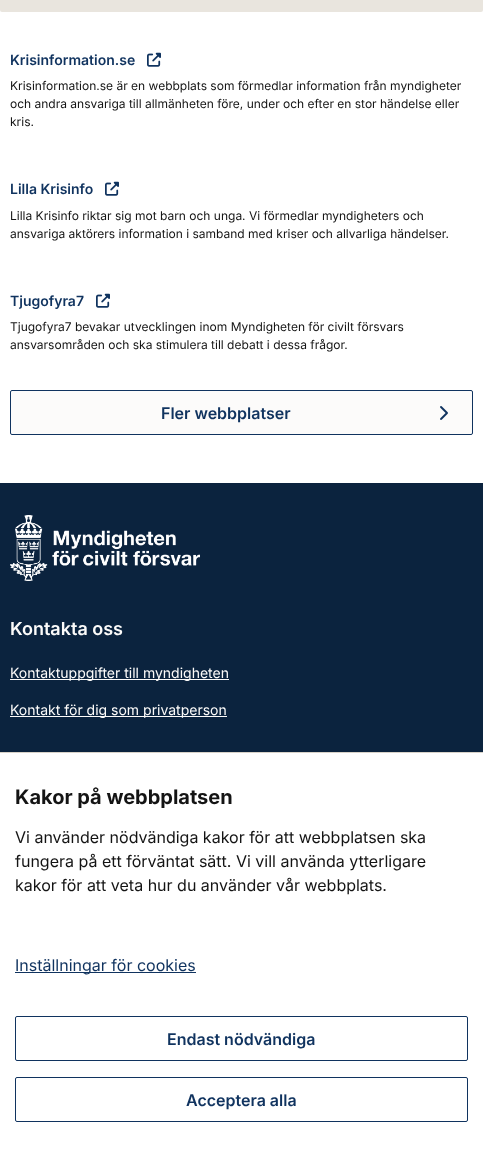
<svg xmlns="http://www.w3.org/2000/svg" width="483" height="1154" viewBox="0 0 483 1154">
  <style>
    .t1 { font: 600 14px Inter; fill: #10335f; }
    .t2 { font: 12px Inter; fill: #141414; }
    .t3 { font: 600 16px Inter; fill: #10335f; }
    .t4 { font: 600 18px Inter; fill: #fcfbfa; }
    .t5 { font: 14px Inter; fill: #fcfbfa; }
    .t6 { font: bold 20px Inter; fill: #141414; }
    .t7 { font: 16px Inter; fill: #141414; }
    .t8 { font: 16px Inter; fill: #10335f; }
  </style>
  <rect width="100%" height="100%" fill="#fff"/>
  <rect x="0" y="-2" width="483" height="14" rx="2" fill="#e9e5de"/>
  <text x="10" y="65" class="t1">Krisinformation.se</text>
  <image x="147" y="52" width="14" height="15" href="images/1.png"/>
  <text x="10" y="90" class="t2">Krisinformation.se är en webbplats som förmedlar information från myndigheter</text>
  <text x="10" y="108" class="t2">och andra ansvariga till allmänheten före, under och efter en stor händelse eller</text>
  <text x="10" y="126" class="t2">kris.</text>
  <text x="10" y="194" class="t1">Lilla Krisinfo</text>
  <image x="105" y="181" width="14" height="15" href="images/1.png"/>
  <text x="10" y="220" class="t2">Lilla Krisinfo riktar sig mot barn och unga. Vi förmedlar myndigheters och</text>
  <text x="10" y="238" class="t2">ansvariga aktörers information i samband med kriser och allvarliga händelser.</text>
  <text x="10" y="306" class="t1">Tjugofyra7</text>
  <image x="96" y="293" width="14" height="15" href="images/1.png"/>
  <text x="10" y="331" class="t2">Tjugofyra7 bevakar utvecklingen inom Myndigheten för civilt försvars</text>
  <text x="10" y="349" class="t2">ansvarsområden och ska stimulera till debatt i dessa frågor.</text>
  <rect x="10.5" y="390.5" width="462" height="44" rx="1.5" fill="#fcfbfa" stroke="#10335f"/>
  <text x="161" y="419" class="t3">Fler webbplatser</text>
  <image x="440" y="406" width="8" height="14" href="images/2.png"/>
  <rect x="0" y="483" width="483" height="269" fill="#0b233e"/>
  <image x="10" y="515" width="190" height="66" href="images/3.png"/>
  <text x="10" y="635" class="t4">Kontakta oss</text>
  <rect x="10" y="679" width="219" height="1" fill="#fcfbfa"/>
  <text x="10" y="678" class="t5">Kontaktuppgifter till myndigheten</text>
  <rect x="10" y="716" width="217" height="1" fill="#fcfbfa"/>
  <text x="10" y="715" class="t5">Kontakt för dig som privatperson</text>
  <rect x="0" y="752" width="483" height="1" fill="#d8d2c8"/>
  <text x="15" y="804" class="t6">Kakor på webbplatsen</text>
  <text x="15" y="843" class="t7">Vi använder nödvändiga kakor för att webbplatsen ska</text>
  <text x="15" y="867" class="t7">fungera på ett förväntat sätt. Vi vill använda ytterligare</text>
  <text x="15" y="891" class="t7">kakor för att veta hur du använder vår webbplats.</text>
  <rect x="15" y="972" width="181" height="1" fill="#10335f"/>
  <text x="15" y="971" class="t8">Inställningar för cookies</text>
  <rect x="15.5" y="1016.5" width="452" height="44" rx="1.5" fill="none" stroke="#10335f"/>
  <text x="167" y="1045" class="t3">Endast nödvändiga</text>
  <rect x="15.5" y="1077.5" width="452" height="44" rx="1.5" fill="none" stroke="#10335f"/>
  <text x="186" y="1106" class="t3">Acceptera alla</text>
</svg>
